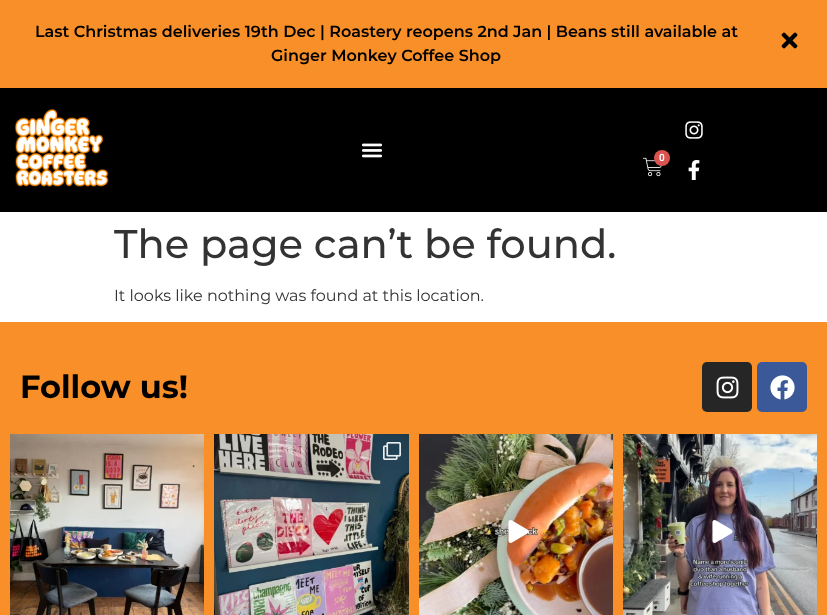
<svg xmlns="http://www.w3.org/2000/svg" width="827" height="615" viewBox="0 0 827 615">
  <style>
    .t1 { font: 600 16px Montserrat; fill: #000; }
    .t2 { font: 600 10px Roboto; fill: #fff; }
    .t3 { font: 500 40px Montserrat; fill: #333; }
    .t4 { font: 16px Montserrat; fill: #333; }
    .t5 { font: bold 32px Montserrat; fill: #000; }
  </style>
  <rect width="100%" height="100%" fill="#fff"/>
  <rect x="0" y="0" width="827" height="88" fill="#f88f28"/>
  <text x="35" y="37" class="t1">Last Christmas deliveries 19th Dec | Roastery reopens 2nd Jan | Beans still available at</text>
  <text x="271" y="61" class="t1">Ginger Monkey Coffee Shop</text>
  <image x="781" y="32" width="17" height="17" href="images/1.png"/>
  <rect x="0" y="88" width="827" height="124" fill="#000"/>
  <image x="15" y="109" width="94" height="78" href="images/2.png"/>
  <image x="361" y="143" width="22" height="15" href="images/3.png"/>
  <image x="643" y="157" width="19" height="20" href="images/4.png"/>
  <circle cx="662" cy="158" r="8" fill="#d9534f"/>
  <text x="659" y="161" class="t2">0</text>
  <image x="685" y="121" width="18" height="18" href="images/5.png"/>
  <image x="688" y="160" width="12" height="20" href="images/6.png"/>
  <text x="114" y="258" class="t3">The page can’t be found.</text>
  <text x="114" y="301" class="t4">It looks like nothing was found at this location.</text>
  <rect x="0" y="322" width="827" height="293" fill="#f88f28"/>
  <text x="20" y="398" class="t5">Follow us!</text>
  <rect x="702" y="362" width="50" height="50" rx="5" fill="#262626"/>
  <image x="716" y="376" width="23" height="23" href="images/7.png"/>
  <rect x="757" y="362" width="50" height="50" rx="5" fill="#3b5998"/>
  <image x="770" y="375" width="25" height="25" href="images/8.png"/>
  <image x="10" y="434" width="194" height="181" href="images/9.png"/>
  <image x="214" y="434" width="195" height="181" href="images/10.png"/>
  <image x="383" y="442" width="18" height="18" href="images/11.png"/>
  <image x="419" y="434" width="194" height="181" href="images/12.png"/>
  <image x="508" y="520" width="21" height="23" href="images/13.png"/>
  <image x="623" y="434" width="194" height="181" href="images/14.png"/>
  <image x="712" y="520" width="21" height="23" href="images/15.png"/>
</svg>
